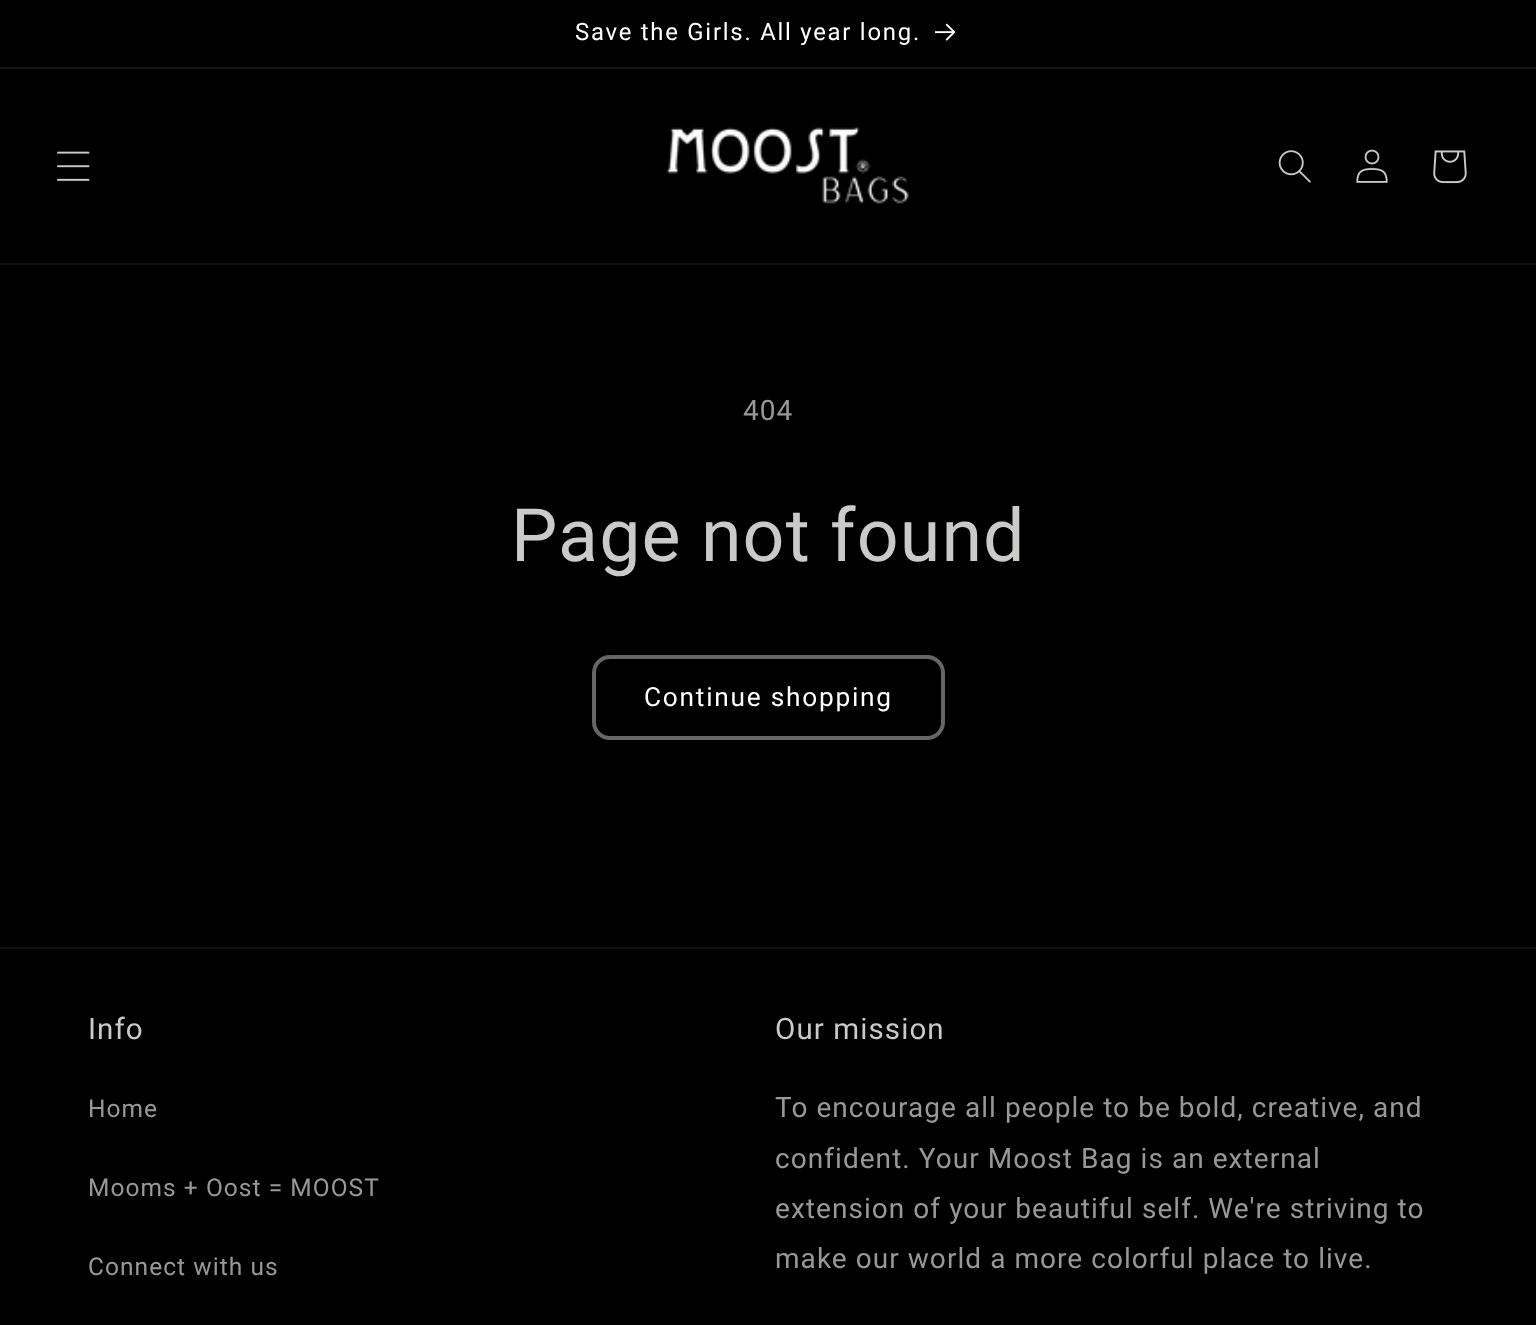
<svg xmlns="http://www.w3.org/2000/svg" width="1536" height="1325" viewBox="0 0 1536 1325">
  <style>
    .t1 { font: 23.9px Roboto; letter-spacing: 1.75px; fill: #fff; }
    .t2 { font: 28px Roboto; letter-spacing: 1.05px; fill: #999896; }
    .t3 { font: 73.5px Roboto; letter-spacing: 1.1px; fill: #cccac8; }
    .t4 { font: 26.25px Roboto; letter-spacing: 1.75px; fill: #fff; }
    .t5 { font: 29.5px Roboto; letter-spacing: 1.1px; fill: #cccac8; }
    .t6 { font: 24.5px Roboto; letter-spacing: 1.05px; fill: #999896; }
  </style>
  <rect width="100%" height="100%" fill="#000"/>
  <rect x="0" y="67" width="1536" height="2" fill="#141414"/>
  <text x="575" y="40" class="t1">Save the Girls. All year long.</text>
  <image x="935" y="23" width="21" height="18" href="images/1.png"/>
  <rect x="0" y="263" width="1536" height="2" fill="#101010"/>
  <image x="57" y="151" width="33" height="30" href="images/2.png"/>
  <image x="666" y="127" width="243" height="77" href="images/3.png"/>
  <image x="1278" y="150" width="33" height="33" href="images/4.png"/>
  <image x="1356" y="149" width="32" height="34" href="images/5.png"/>
  <image x="1433" y="150" width="34" height="34" href="images/6.png"/>
  <text x="743" y="420" class="t2">404</text>
  <text x="511" y="561" class="t3">Page not found</text>
  <rect x="594" y="657" width="349" height="81" rx="16" fill="none" stroke="#666" stroke-width="4"/>
  <text x="644" y="706" class="t4">Continue shopping</text>
  <rect x="0" y="947" width="1536" height="2" fill="#101010"/>
  <text x="88" y="1039" class="t5">Info</text>
  <text x="88" y="1117" class="t6">Home</text>
  <text x="88" y="1196" class="t6">Mooms + Oost = MOOST</text>
  <text x="88" y="1275" class="t6">Connect with us</text>
  <text x="775" y="1039" class="t5">Our mission</text>
  <text x="775" y="1117" class="t2">To encourage all people to be bold, creative, and</text>
  <text x="775" y="1168" class="t2">confident. Your Moost Bag is an external</text>
  <text x="775" y="1218" class="t2">extension of your beautiful self. We're striving to</text>
  <text x="775" y="1268" class="t2">make our world a more colorful place to live.</text>
</svg>
